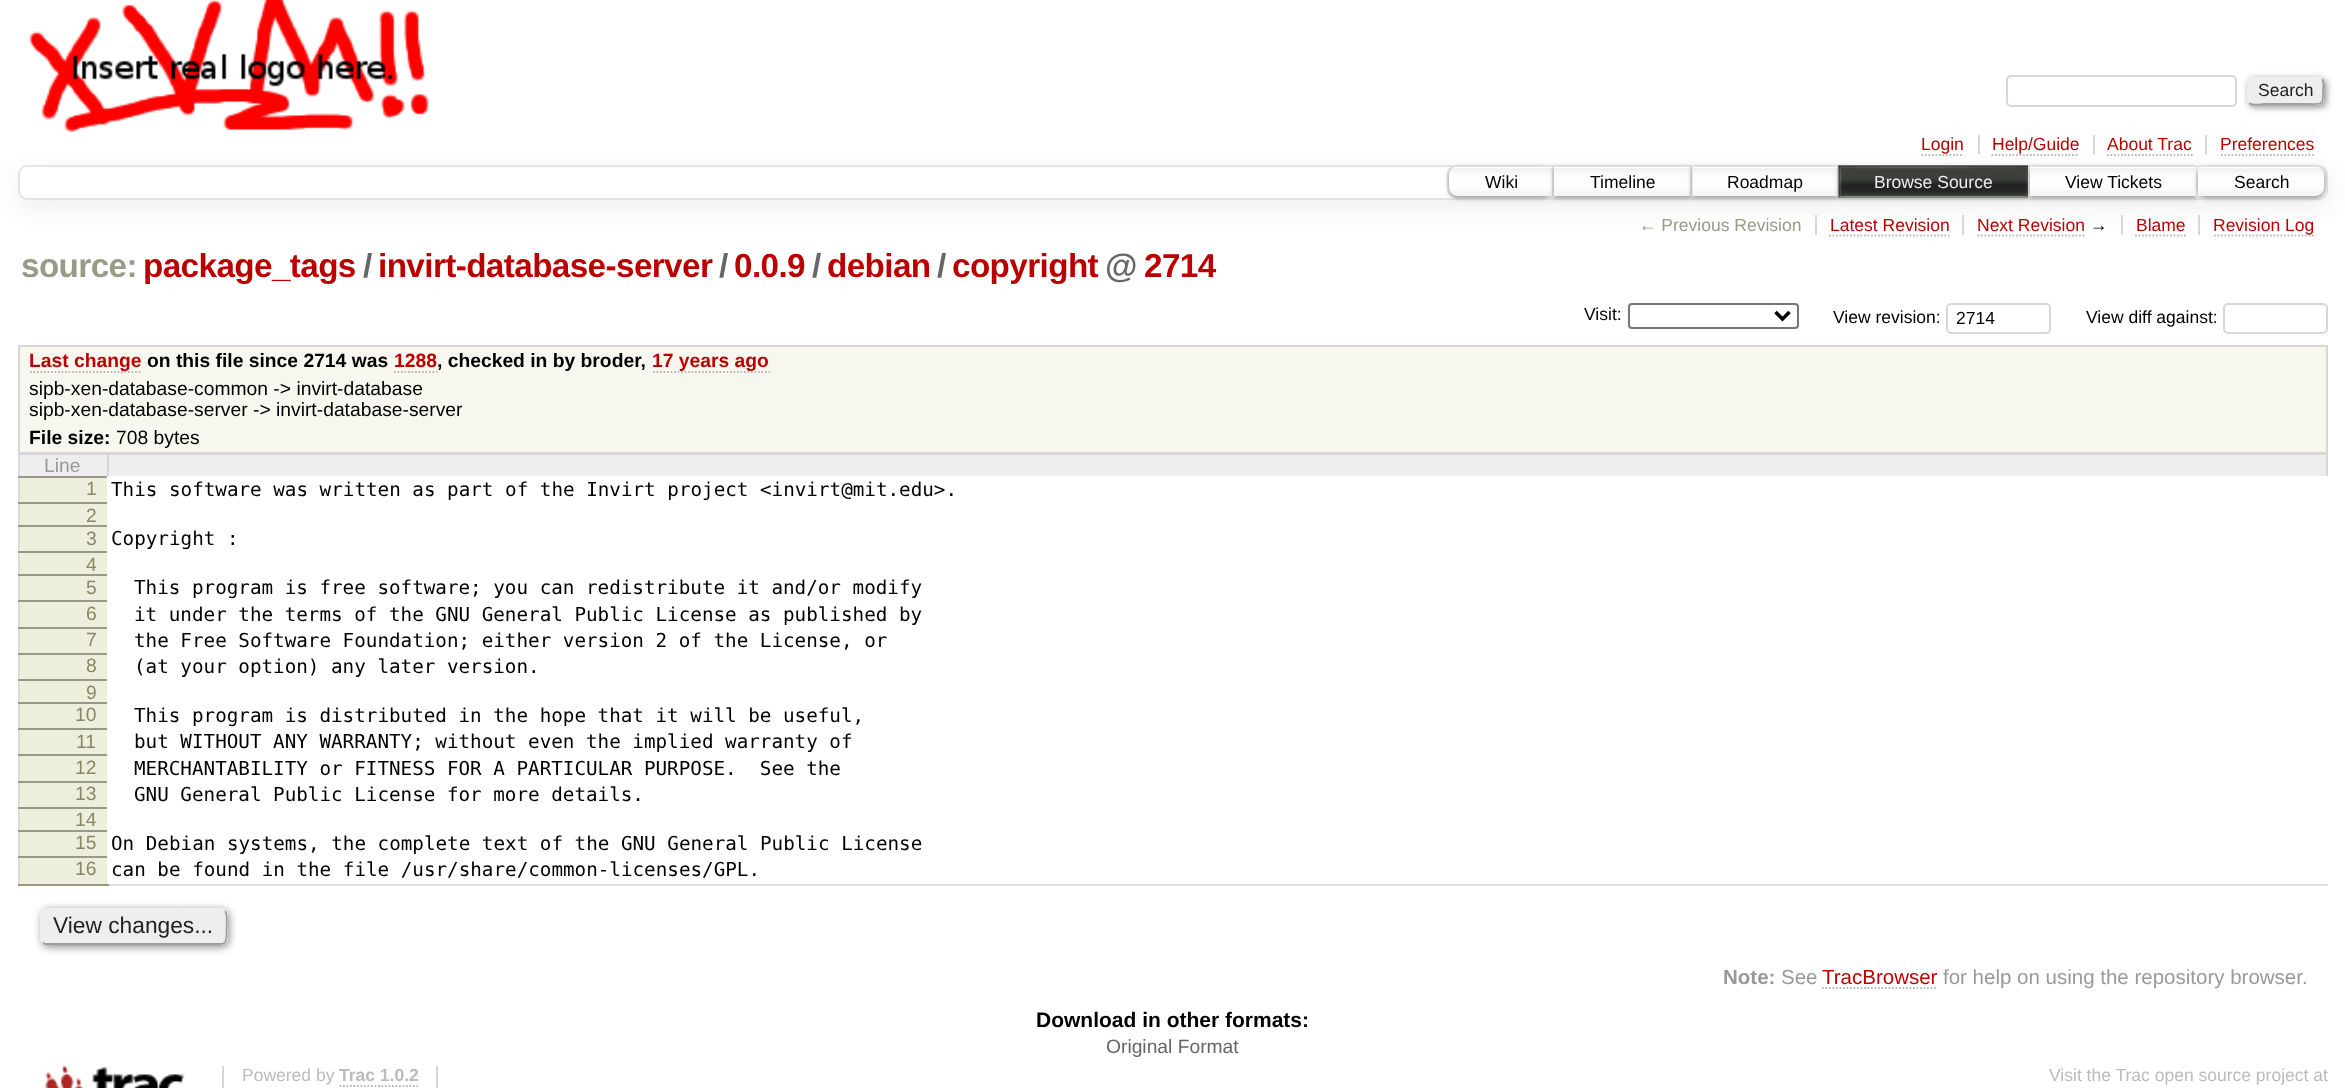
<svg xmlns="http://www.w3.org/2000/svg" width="2345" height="1088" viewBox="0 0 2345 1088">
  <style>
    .t1 { font: 17.5px Liberation Sans; fill: #222; }
    .t2 { font: 17.5px Liberation Sans; fill: #b00; }
    .t3 { font: 17.5px Liberation Sans; fill: #000; }
    .t4 { font: 17.5px Liberation Sans; fill: #eee; }
    .t5 { font: 17.5px Liberation Sans; fill: #998; }
    .t6 { font: bold 33.25px Liberation Sans; letter-spacing: -0.6px; fill: #998; }
    .t7 { font: bold 33.25px Liberation Sans; letter-spacing: -0.6px; fill: #b00; }
    .t8 { font: bold 33.25px Liberation Sans; letter-spacing: -0.6px; fill: #666; }
    .t9 { font: bold 19.3px Liberation Sans; fill: #b00; }
    .t10 { font: bold 19.3px Liberation Sans; fill: #000; }
    .t11 { font: 19.3px Liberation Sans; fill: #000; }
    .t12 { font: 19.25px Liberation Sans; fill: #999; }
    .t13 { font: 19.25px Liberation Sans; fill: #886; }
    .t14 { font: 19.25px DejaVu Sans Mono; fill: #000; }
    .t15 { font: 22.75px Liberation Sans; fill: #222; }
    .t16 { font: bold 20.5px Liberation Sans; fill: #999; }
    .t17 { font: 20.5px Liberation Sans; fill: #999; }
    .t18 { font: 20.5px Liberation Sans; fill: #b00; }
    .t19 { font: bold 21px Liberation Sans; fill: #000; }
    .t20 { font: 19.25px Liberation Sans; fill: #666; }
    .t21 { font: 17.5px Liberation Sans; fill: #bbb; }
    .t22 { font: bold 17.5px Liberation Sans; fill: #bbb; }
  </style>
  <defs>
    <clipPath id="clip1"><path d="M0 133H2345V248H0ZM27 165H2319C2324 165 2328 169 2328 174V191C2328 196 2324 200 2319 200H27C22 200 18 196 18 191V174C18 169 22 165 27 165Z" clip-rule="evenodd"/></clipPath>
    <clipPath id="clip2"><path d="M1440 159H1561V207H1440ZM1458 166H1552V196H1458C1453 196 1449 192 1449 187V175C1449 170 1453 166 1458 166Z" clip-rule="evenodd"/></clipPath>
    <clipPath id="clip3"><path d="M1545 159H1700V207H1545ZM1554 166H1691V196H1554Z" clip-rule="evenodd"/></clipPath>
    <clipPath id="clip4"><path d="M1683 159H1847V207H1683ZM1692 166H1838V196H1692Z" clip-rule="evenodd"/></clipPath>
    <clipPath id="clip5"><path d="M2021 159H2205V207H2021ZM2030 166H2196V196H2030Z" clip-rule="evenodd"/></clipPath>
    <clipPath id="clip6"><path d="M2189 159H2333V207H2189ZM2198 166H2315C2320 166 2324 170 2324 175V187C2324 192 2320 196 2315 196H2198Z" clip-rule="evenodd"/></clipPath>
  </defs>
  <rect width="100%" height="100%" fill="#fff"/>
  <image x="29" y="0" width="401" height="132" href="images/1.png"/>
  <rect x="2007" y="76" width="229" height="30" rx="4" fill="none" stroke="#d7d7d7" stroke-width="2"/>
  <rect x="2249" y="79" width="77" height="28" rx="5" fill="#888" filter="blur(3.5px)"/>
  <rect x="2247" y="77" width="77" height="28" rx="5" fill="#eee"/>
  <path d="M2322 79C2324.5 81.5 2323 88 2323 91C2323 106 2323.5 104 2307.5 104H2263.5C2262.5 104 2252 106 2249 103" fill="none" stroke="#9f9f9f" stroke-width="1.8"/>
  <path d="M2249 103C2246.5 100.5 2248 94 2248 91C2248 76 2247.5 78 2263.5 78H2307.5C2308.5 78 2319 76 2322 79" fill="none" stroke="#eee" stroke-width="1.8"/>
  <text x="2258" y="96" class="t1">Search</text>
  <g clip-path="url(#clip1)">
    <rect x="18" y="173" width="2310" height="35" rx="9" fill="#eee" filter="blur(13px)"/>
  </g>
  <rect x="1978" y="135" width="2" height="19" fill="#d7d7d7"/>
  <text x="1921" y="150" class="t2">Login</text>
  <path d="M1921.5 155H1963.5" fill="none" stroke="#bbb" stroke-width="1.8" stroke-dasharray="1.75 1.75"/>
  <rect x="2093" y="135" width="2" height="19" fill="#d7d7d7"/>
  <text x="1992" y="150" class="t2">Help/Guide</text>
  <path d="M1991.5 155H2079" fill="none" stroke="#bbb" stroke-width="1.8" stroke-dasharray="1.75 1.75"/>
  <rect x="2205" y="135" width="2" height="19" fill="#d7d7d7"/>
  <text x="2107" y="150" class="t2">About Trac</text>
  <path d="M2107 155H2193" fill="none" stroke="#bbb" stroke-width="1.8" stroke-dasharray="1.75 1.75"/>
  <text x="2220" y="150" class="t2">Preferences</text>
  <path d="M2221 155H2315" fill="none" stroke="#bbb" stroke-width="1.8" stroke-dasharray="1.75 1.75"/>
  <rect x="19" y="166" width="2308" height="33" rx="8" fill="none" stroke="#e4e4e4" stroke-width="2"/>
  <path d="M1456 165H1554V198H1456C1451 198 1447 194 1447 189V174C1447 169 1451 165 1456 165Z" fill="#fff"/>
  <image x="1448" y="168" width="104" height="28" href="images/2.png"/>
  <path d="M1456 166H1553V197H1456C1451.5 197 1448 193.5 1448 189V174C1448 169.5 1451.5 166 1456 166Z" fill="none" stroke="#e4e4e4" stroke-width="2"/>
  <g clip-path="url(#clip2)">
    <rect x="1449" y="168" width="103" height="30" rx="9" fill="#999" filter="blur(2.5px)"/>
  </g>
  <text x="1485" y="188" class="t3">Wiki</text>
  <rect x="1554" y="170" width="3" height="26" fill="#fff"/>
  <image x="1554" y="168" width="136" height="28" href="images/3.png"/>
  <rect x="1553" y="166" width="138" height="31" fill="none" stroke="#e4e4e4" stroke-width="2"/>
  <g clip-path="url(#clip3)">
    <rect x="1554" y="168" width="137" height="30" fill="#999" filter="blur(2.5px)"/>
  </g>
  <text x="1590" y="188" class="t3">Timeline</text>
  <rect x="1693" y="167" width="3" height="29" fill="#fff"/>
  <image x="1690" y="168" width="147" height="28" href="images/4.png"/>
  <rect x="1692" y="166" width="146" height="31" fill="none" stroke="#e4e4e4" stroke-width="2"/>
  <g clip-path="url(#clip4)">
    <rect x="1692" y="168" width="146" height="30" fill="#999" filter="blur(2.5px)"/>
  </g>
  <text x="1727" y="188" class="t3">Roadmap</text>
  <image x="1837" y="169" width="1" height="9" href="images/5.png"/>
  <rect x="1839" y="166" width="190" height="31" fill="none" stroke="#666" stroke-width="2"/>
  <rect x="1839" y="168" width="189" height="30" fill="#999" filter="blur(2.5px)"/>
  <rect x="1839" y="166" width="189" height="30" fill="#000"/>
  <image x="1839" y="166" width="189" height="30" href="images/6.png"/>
  <text x="1874" y="188" class="t4">Browse Source</text>
  <rect x="2030" y="167" width="3" height="29" fill="#fff"/>
  <image x="2030" y="168" width="166" height="28" href="images/7.png"/>
  <rect x="2029" y="166" width="168" height="31" fill="none" stroke="#e4e4e4" stroke-width="2"/>
  <g clip-path="url(#clip5)">
    <rect x="2030" y="168" width="166" height="30" fill="#999" filter="blur(2.5px)"/>
  </g>
  <text x="2065" y="188" class="t3">View Tickets</text>
  <path d="M2196 165H2317C2322 165 2326 169 2326 174V189C2326 194 2322 198 2317 198H2196Z" fill="#fff"/>
  <image x="2198" y="168" width="127" height="28" href="images/8.png"/>
  <path d="M2197 166H2317C2321.5 166 2325 169.5 2325 174V189C2325 193.5 2321.5 197 2317 197H2197Z" fill="none" stroke="#e4e4e4" stroke-width="2"/>
  <g clip-path="url(#clip6)">
    <rect x="2198" y="168" width="126" height="30" rx="9" fill="#999" filter="blur(2.5px)"/>
  </g>
  <text x="2234" y="188" class="t3">Search</text>
  <rect x="1815" y="215" width="2" height="20" fill="#d7d7d7"/>
  <text x="1639" y="231" class="t5">← Previous Revision</text>
  <rect x="1962" y="215" width="2" height="20" fill="#d7d7d7"/>
  <text x="1830" y="231" class="t2">Latest Revision</text>
  <path d="M1829 235.5H1949.5" fill="none" stroke="#bbb" stroke-width="1.8" stroke-dasharray="1.75 1.75"/>
  <rect x="2121" y="215" width="2" height="20" fill="#d7d7d7"/>
  <text x="1977" y="231" class="t2">Next Revision</text>
  <path d="M1977.5 235.5H2086" fill="none" stroke="#bbb" stroke-width="1.8" stroke-dasharray="1.75 1.75"/>
  <text x="2090" y="231" class="t3">→</text>
  <rect x="2198" y="215" width="2" height="20" fill="#d7d7d7"/>
  <text x="2136" y="231" class="t2">Blame</text>
  <path d="M2135 235.5H2186" fill="none" stroke="#bbb" stroke-width="1.8" stroke-dasharray="1.75 1.75"/>
  <path d="M2214 235.5H2315" fill="none" stroke="#bbb" stroke-width="1.8" stroke-dasharray="1.75 1.75"/>
  <text x="2213" y="231" class="t2">Revision Log</text>
  <text x="21" y="277" class="t6">source:</text>
  <text x="143" y="277" class="t7">package_tags</text>
  <text x="363" y="277" class="t8">/</text>
  <text x="378" y="277" class="t7">invirt-database-server</text>
  <text x="719" y="277" class="t8">/</text>
  <text x="734" y="277" class="t7">0.0.9</text>
  <text x="812" y="277" class="t8">/</text>
  <text x="827" y="277" class="t7">debian</text>
  <text x="937" y="277" class="t8">/</text>
  <text x="952" y="277" class="t7">copyright</text>
  <text x="1105" y="277" class="t8">@</text>
  <text x="1144" y="277" class="t7">2714</text>
  <text x="1584" y="320" class="t3">Visit:</text>
  <rect x="1629" y="304" width="169" height="24" rx="3" fill="none" stroke="#767676" stroke-width="2"/>
  <path d="M1775.5 312L1782.5 319L1789.5 312" fill="none" stroke="#000" stroke-width="3.5"/>
  <text x="1833" y="323" class="t3">View revision:</text>
  <rect x="1947" y="304" width="103" height="29" rx="4" fill="none" stroke="#d7d7d7" stroke-width="2"/>
  <text x="1956" y="324" class="t3">2714</text>
  <text x="2086" y="323" class="t3">View diff against:</text>
  <rect x="2224" y="304" width="103" height="29" rx="4" fill="none" stroke="#d7d7d7" stroke-width="2"/>
  <rect x="20" y="347" width="2306" height="105" fill="#f7f7f0"/>
  <rect x="18" y="345" width="2310" height="2" fill="#d7d7d7"/>
  <rect x="2326" y="345" width="2" height="108" fill="#d7d7d7"/>
  <rect x="18" y="452" width="2310" height="1" fill="#d7d7d7"/>
  <rect x="18" y="345" width="2" height="108" fill="#d7d7d7"/>
  <path d="M30 372H142" fill="none" stroke="#bbb" stroke-width="1.8" stroke-dasharray="1.75 1.75"/>
  <text x="29" y="367" class="t9">Last change</text>
  <text x="147" y="367" class="t10">on this file since 2714 was</text>
  <text x="394" y="367" class="t9">1288</text>
  <path d="M394 372H437.5" fill="none" stroke="#bbb" stroke-width="1.8" stroke-dasharray="1.75 1.75"/>
  <text x="437" y="367" class="t10">, checked in by broder,</text>
  <path d="M653 372H770" fill="none" stroke="#bbb" stroke-width="1.8" stroke-dasharray="1.75 1.75"/>
  <text x="652" y="367" class="t9">17 years ago</text>
  <text x="29" y="395" class="t11">sipb-xen-database-common -&gt; invirt-database</text>
  <text x="29" y="416" class="t11">sipb-xen-database-server -&gt; invirt-database-server</text>
  <text x="29" y="444" class="t10">File size:</text>
  <text x="116" y="444" class="t11">708 bytes</text>
  <rect x="109" y="884" width="2219" height="2" fill="#ddd"/>
  <rect x="18" y="453" width="2" height="433" fill="#ddd"/>
  <rect x="109" y="455" width="2217" height="21" fill="#eee"/>
  <rect x="18" y="453" width="2310" height="2" fill="#d7d7d7"/>
  <rect x="2326" y="453" width="2" height="25" fill="#d7d7d7"/>
  <rect x="20" y="455" width="87" height="21" fill="#eee"/>
  <rect x="107" y="453" width="2" height="25" fill="#d7d7d7"/>
  <rect x="18" y="476" width="91" height="2" fill="#998"/>
  <text x="44" y="472" class="t12">Line</text>
  <rect x="20" y="478" width="87" height="24" fill="#eed"/>
  <rect x="18" y="502" width="91" height="2" fill="#998"/>
  <text x="86" y="495" class="t13">1</text>
  <rect x="107" y="476" width="2221" height="28" fill="#fff"/>
  <text x="111" y="496" class="t14">This software was written as part of the Invirt project &lt;invirt@mit.edu&gt;.</text>
  <rect x="20" y="504" width="87" height="21" fill="#eed"/>
  <rect x="18" y="525" width="91" height="2" fill="#998"/>
  <text x="86" y="522" class="t13">2</text>
  <rect x="107" y="525" width="2" height="2" fill="#fff"/>
  <rect x="20" y="527" width="87" height="24" fill="#eed"/>
  <rect x="18" y="551" width="91" height="2" fill="#998"/>
  <text x="86" y="545" class="t13">3</text>
  <rect x="107" y="551" width="2" height="2" fill="#fff"/>
  <text x="111" y="545" class="t14">Copyright :</text>
  <rect x="20" y="553" width="87" height="21" fill="#eed"/>
  <rect x="18" y="574" width="91" height="2" fill="#998"/>
  <text x="86" y="571" class="t13">4</text>
  <rect x="107" y="574" width="2" height="2" fill="#fff"/>
  <rect x="20" y="576" width="87" height="24" fill="#eed"/>
  <rect x="18" y="600" width="91" height="2" fill="#998"/>
  <text x="86" y="594" class="t13">5</text>
  <rect x="107" y="600" width="2" height="2" fill="#fff"/>
  <text x="134" y="594" class="t14">This program is free software; you can redistribute it and/or modify</text>
  <rect x="20" y="602" width="87" height="25" fill="#eed"/>
  <rect x="18" y="627" width="91" height="2" fill="#998"/>
  <text x="86" y="620" class="t13">6</text>
  <rect x="18" y="653" width="91" height="2" fill="#998"/>
  <rect x="107" y="627" width="2" height="28" fill="#fff"/>
  <text x="134" y="621" class="t14">it under the terms of the GNU General Public License as published by</text>
  <rect x="20" y="629" width="87" height="24" fill="#eed"/>
  <text x="86" y="646" class="t13">7</text>
  <text x="134" y="647" class="t14">the Free Software Foundation; either version 2 of the License, or</text>
  <rect x="20" y="655" width="87" height="24" fill="#eed"/>
  <rect x="18" y="679" width="91" height="2" fill="#998"/>
  <text x="86" y="672" class="t13">8</text>
  <rect x="107" y="679" width="2" height="2" fill="#fff"/>
  <text x="134" y="673" class="t14">(at your option) any later version.</text>
  <rect x="20" y="681" width="87" height="21" fill="#eed"/>
  <rect x="18" y="702" width="91" height="2" fill="#998"/>
  <text x="86" y="699" class="t13">9</text>
  <rect x="107" y="702" width="2" height="2" fill="#fff"/>
  <rect x="20" y="704" width="87" height="24" fill="#eed"/>
  <rect x="18" y="728" width="91" height="2" fill="#998"/>
  <text x="75" y="721" class="t13">10</text>
  <rect x="107" y="728" width="2" height="2" fill="#fff"/>
  <text x="134" y="722" class="t14">This program is distributed in the hope that it will be useful,</text>
  <rect x="20" y="730" width="87" height="24" fill="#eed"/>
  <rect x="18" y="754" width="91" height="2" fill="#998"/>
  <text x="76" y="748" class="t13">11</text>
  <rect x="107" y="754" width="2" height="2" fill="#fff"/>
  <text x="134" y="748" class="t14">but WITHOUT ANY WARRANTY; without even the implied warranty of</text>
  <rect x="20" y="756" width="87" height="25" fill="#eed"/>
  <rect x="18" y="781" width="91" height="2" fill="#998"/>
  <text x="75" y="774" class="t13">12</text>
  <rect x="18" y="807" width="91" height="2" fill="#998"/>
  <rect x="107" y="781" width="2" height="28" fill="#fff"/>
  <text x="134" y="775" class="t14" xml:space="preserve">MERCHANTABILITY or FITNESS FOR A PARTICULAR PURPOSE.  See the</text>
  <rect x="20" y="783" width="87" height="24" fill="#eed"/>
  <text x="75" y="800" class="t13">13</text>
  <text x="134" y="801" class="t14">GNU General Public License for more details.</text>
  <rect x="20" y="809" width="87" height="21" fill="#eed"/>
  <rect x="18" y="830" width="91" height="2" fill="#998"/>
  <text x="75" y="826" class="t13">14</text>
  <rect x="18" y="856" width="91" height="2" fill="#998"/>
  <rect x="107" y="830" width="2" height="28" fill="#fff"/>
  <rect x="20" y="832" width="87" height="24" fill="#eed"/>
  <text x="75" y="849" class="t13">15</text>
  <text x="111" y="850" class="t14">On Debian systems, the complete text of the GNU General Public License</text>
  <rect x="20" y="858" width="87" height="26" fill="#eed"/>
  <rect x="18" y="884" width="91" height="2" fill="#998"/>
  <text x="75" y="875" class="t13">16</text>
  <text x="111" y="876" class="t14">can be found in the file /usr/share/common-licenses/GPL.</text>
  <rect x="42" y="910" width="187" height="37" rx="7" fill="#888" filter="blur(4.5px)"/>
  <rect x="40" y="908" width="188" height="37" rx="7" fill="#eee"/>
  <path d="M225 911C228 914 226.5 926 226.5 930.5C226.5 935 228 944 220.5 944H45.5L43 942.5" fill="none" stroke="#9f9f9f" stroke-width="1.8"/>
  <path d="M43 942.5C39.5 939 41 927 41 923C41 918 40 909 47 909L222.5 909.5L225 911" fill="none" stroke="#eee" stroke-width="1.8"/>
  <text x="53" y="933" class="t15">View changes...</text>
  <text x="1723" y="984" class="t16">Note:</text>
  <text x="1781" y="984" class="t17">See</text>
  <text x="1822" y="984" class="t18">TracBrowser</text>
  <path d="M1822 988H1937" fill="none" stroke="#bbb" stroke-width="1.8" stroke-dasharray="1.75 1.75"/>
  <text x="1943" y="984" class="t17">for help on using the repository browser.</text>
  <text x="1036" y="1027" class="t19">Download in other formats:</text>
  <text x="1106" y="1053" class="t20">Original Format</text>
  <image x="45" y="1065" width="140" height="23" href="images/9.png"/>
  <rect x="436" y="1066" width="2" height="22" fill="#d7d7d7"/>
  <rect x="222" y="1066" width="2" height="22" fill="#d7d7d7"/>
  <text x="242" y="1081" class="t21">Powered by</text>
  <text x="339" y="1081" class="t22">Trac 1.0.2</text>
  <path d="M339.5 1086H418" fill="none" stroke="#bbb" stroke-width="1.8" stroke-dasharray="1.75 1.75"/>
  <text x="2049" y="1081" class="t21">Visit the Trac open source project at</text>
</svg>
